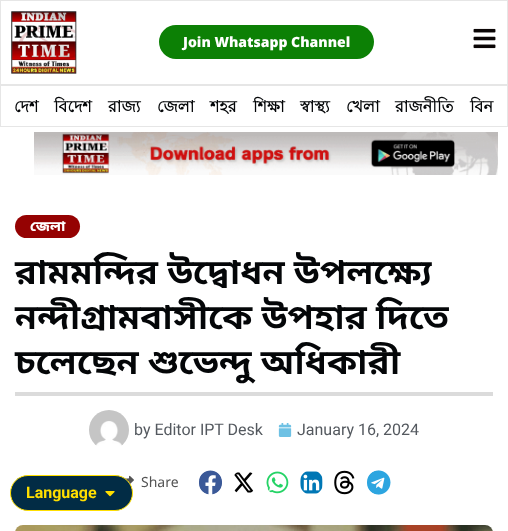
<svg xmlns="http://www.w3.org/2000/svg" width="508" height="531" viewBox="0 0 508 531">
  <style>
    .t1 { font: 900 14px Noto Sans; fill: #fff; }
    .t2 { font: bold 16px Lohit Bengali; fill: #040608; }
    .t3 { font: 800 14px Noto Sans Bengali; fill: #fff; }
    .t4 { font: bold 35px Noto Sans Bengali; fill: #040608; }
    .t5 { font: 16px Roboto; fill: #54595f; }
    .t6 { font: 14px Noto Sans; fill: #545454; }
    .t7 { font: bold 16px Roboto; fill: #ffdf00; }
  </style>
  <rect width="100%" height="100%" fill="#fff"/>
  <rect x="0.5" y="0.5" width="507" height="84" fill="none" stroke="#e6e6e6"/>
  <image x="11" y="11" width="66" height="63" href="images/1.png"/>
  <rect x="159" y="25" width="215" height="34" rx="17" fill="#0c8005"/>
  <text x="183" y="47" class="t1">Join Whatsapp Channel</text>
  <image x="473" y="28" width="23" height="21" href="images/2.png"/>
  <rect x="0.5" y="85.5" width="507" height="41" fill="none" stroke="#e6e6e6"/>
  <text x="14" y="112" class="t2">দেশ</text>
  <text x="54" y="112" class="t2">বিদেশ</text>
  <text x="108" y="112" class="t2">রাজ্য</text>
  <text x="157" y="112" class="t2">জেলা</text>
  <text x="210" y="112" class="t2">শহর</text>
  <text x="253" y="112" class="t2">শিক্ষা</text>
  <text x="300" y="112" class="t2">স্বাস্থ্য</text>
  <text x="346" y="112" class="t2">খেলা</text>
  <text x="395" y="112" class="t2">রাজনীতি</text>
  <text x="470" y="112" class="t2">বিন</text>
  <image x="34" y="132" width="464" height="43" href="images/3.png"/>
  <rect x="15" y="215" width="65" height="23" rx="11.5" fill="#950202"/>
  <text x="30" y="231" class="t3">জেলা</text>
  <text x="15" y="284" class="t4">রামমন্দির উদ্বোধন উপলক্ষ্যে</text>
  <text x="15" y="329" class="t4">নন্দীগ্রামবাসীকে উপহার দিতে</text>
  <text x="15" y="374" class="t4">চলেছেন শুভেন্দু অধিকারী</text>
  <rect x="15" y="392" width="478" height="4" fill="#dbdbdb"/>
  <image x="89" y="410" width="40" height="36" href="images/4.png"/>
  <text x="134" y="435" class="t5">by Editor IPT Desk</text>
  <image x="278" y="423" width="14" height="14" href="images/5.png"/>
  <text x="297" y="435" class="t5">January 16, 2024</text>
  <image x="123" y="475" width="11" height="9" href="images/6.png"/>
  <text x="141" y="487" class="t6">Share</text>
  <image x="199" y="470" width="23" height="25" href="images/7.png"/>
  <image x="234" y="472" width="20" height="21" href="images/8.png"/>
  <image x="266" y="471" width="23" height="23" href="images/9.png"/>
  <image x="300" y="471" width="23" height="23" href="images/10.png"/>
  <image x="334" y="470" width="21" height="25" href="images/11.png"/>
  <image x="367" y="470" width="24" height="25" href="images/12.png"/>
  <image x="15" y="525" width="478" height="6" href="images/13.png"/>
  <rect x="10.5" y="475.5" width="122" height="35" rx="17.5" fill="#022c45" stroke="#ffdf00"/>
  <text x="26" y="498" class="t7">Language</text>
  <image x="105" y="491" width="10" height="6" href="images/14.png"/>
</svg>
